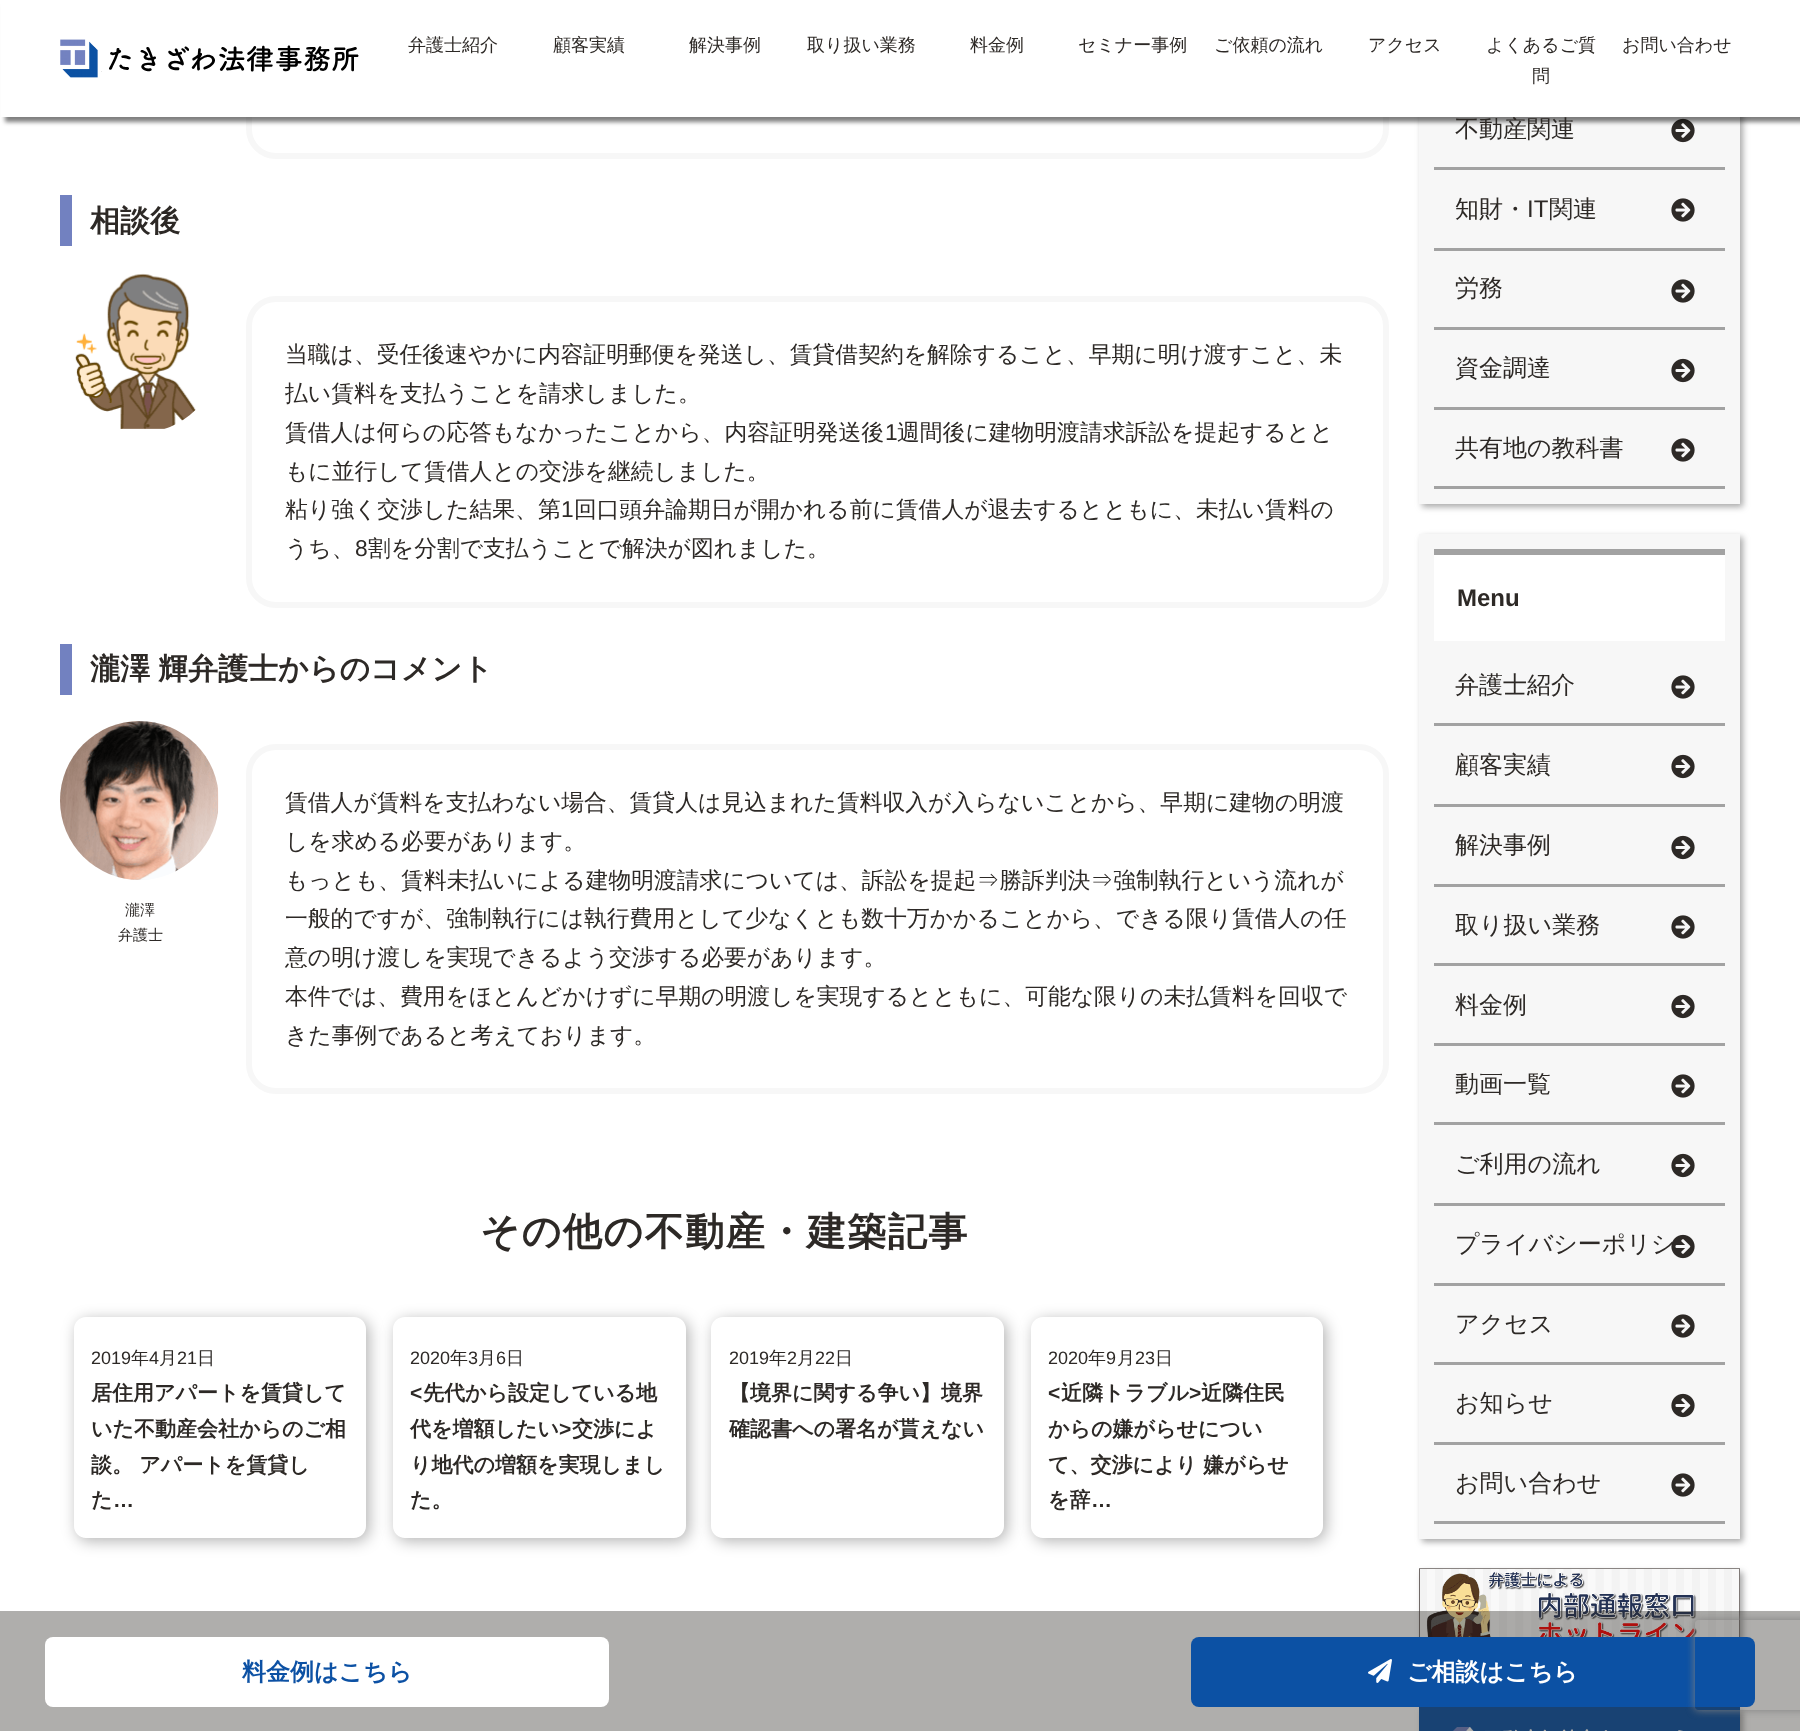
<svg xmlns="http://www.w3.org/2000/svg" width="1800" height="1731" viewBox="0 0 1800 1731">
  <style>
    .t1 { font: 500 24px WenQuanYi Zen Hei; fill: #2d2926; }
    .t2 { font: 500 18px WenQuanYi Zen Hei; fill: #2d2926; }
    .t3 { font: bold 30px WenQuanYi Zen Hei; fill: #2d2926; }
    .t4 { font: 500 22.8px WenQuanYi Zen Hei; fill: #2d2926; }
    .t5 { font: 22.8px Liberation Sans; fill: #2d2926; }
    .t6 { font: 500 15px WenQuanYi Zen Hei; fill: #2d2926; }
    .t7 { font: bold 39px WenQuanYi Zen Hei; letter-spacing: 1.5px; fill: #2d2926; }
    .t8 { font: 18px Liberation Sans; fill: #2d2926; }
    .t9 { font: bold 21px WenQuanYi Zen Hei; fill: #2d2926; }
    .t10 { font: bold 21px Liberation Sans; fill: #2d2926; }
    .t11 { font: 24px Liberation Sans; fill: #2d2926; }
    .t12 { font: bold 24px Liberation Sans; fill: #2d2926; }
    .t13 { font: bold 24px WenQuanYi Zen Hei; fill: #0c51a4; }
    .t14 { font: bold 24px WenQuanYi Zen Hei; fill: #fff; }
  </style>
  <defs>
    <clipPath id="clip1"><path d="M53 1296H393V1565H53ZM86 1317H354C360.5 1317 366 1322.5 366 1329V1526C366 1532.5 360.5 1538 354 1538H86C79.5 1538 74 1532.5 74 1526V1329C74 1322.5 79.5 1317 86 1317Z" clip-rule="evenodd"/></clipPath>
    <clipPath id="clip2"><path d="M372 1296H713V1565H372ZM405 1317H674C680.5 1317 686 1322.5 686 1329V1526C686 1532.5 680.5 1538 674 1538H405C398.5 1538 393 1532.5 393 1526V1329C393 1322.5 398.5 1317 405 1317Z" clip-rule="evenodd"/></clipPath>
    <clipPath id="clip3"><path d="M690 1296H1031V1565H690ZM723 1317H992C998.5 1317 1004 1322.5 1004 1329V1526C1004 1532.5 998.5 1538 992 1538H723C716.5 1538 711 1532.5 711 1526V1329C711 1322.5 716.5 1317 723 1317Z" clip-rule="evenodd"/></clipPath>
    <clipPath id="clip4"><path d="M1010 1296H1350V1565H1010ZM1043 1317H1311C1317.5 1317 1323 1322.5 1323 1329V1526C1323 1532.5 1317.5 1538 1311 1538H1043C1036.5 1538 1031 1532.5 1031 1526V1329C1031 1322.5 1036.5 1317 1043 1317Z" clip-rule="evenodd"/></clipPath>
    <clipPath id="clip5"><path d="M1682 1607H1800V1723H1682ZM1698 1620H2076C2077.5 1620 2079 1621.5 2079 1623V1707C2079 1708.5 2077.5 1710 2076 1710H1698C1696.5 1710 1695 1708.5 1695 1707V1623C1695 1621.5 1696.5 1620 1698 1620Z" clip-rule="evenodd"/></clipPath>
  </defs>
  <rect width="100%" height="100%" fill="#fff"/>
  <rect x="249" y="-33" width="1137" height="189" rx="27" fill="none" stroke="#f7f7f7" stroke-width="6"/>
  <rect x="1422" y="-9" width="321" height="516" fill="#54545480" filter="blur(3px)"/>
  <rect x="1419" y="117" width="321" height="387" fill="#f7f7f7"/>
  <image x="1671" y="118" width="24" height="25" href="images/4.png"/>
  <rect x="5" y="5" width="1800" height="117" fill="#00000080" filter="blur(2px)"/>
  <text x="1455" y="137" class="t1">不動産関連</text>
  <rect x="1" y="0" width="1799" height="117" fill="#fff"/>
  <image x="60" y="39" width="299" height="39" href="images/1.png"/>
  <text x="408" y="51" class="t2">弁護士紹介</text>
  <text x="553" y="51" class="t2">顧客実績</text>
  <text x="689" y="51" class="t2">解決事例</text>
  <text x="807" y="51" class="t2">取り扱い業務</text>
  <text x="970" y="51" class="t2">料金例</text>
  <text x="1078" y="51" class="t2">セミナー事例</text>
  <text x="1214" y="51" class="t2">ご依頼の流れ</text>
  <text x="1368" y="51" class="t2">アクセス</text>
  <text x="1486" y="51" class="t2">よくあるご質</text>
  <text x="1532" y="82" class="t2">問</text>
  <text x="1622" y="51" class="t2">お問い合わせ</text>
  <rect x="60" y="195" width="12" height="51" fill="#7281c0"/>
  <text x="90" y="231" class="t3">相談後</text>
  <image x="75" y="273" width="121" height="156" href="images/2.png"/>
  <rect x="249" y="299" width="1137" height="306" rx="27" fill="none" stroke="#f7f7f7" stroke-width="6"/>
  <text x="285" y="362" class="t4">当職は、受任後速やかに内容証明郵便を発送し、賃貸借契約を解除すること、早期に明け渡すこと、未</text>
  <text x="285" y="401" class="t4">払い賃料を支払うことを請求しました。</text>
  <text x="285" y="440" class="t4">賃借人は何らの応答もなかったことから、内容証明発送後</text>
  <text x="885" y="440" class="t5">1</text>
  <text x="897" y="440" class="t4">週間後に建物明渡請求訴訟を提起するとと</text>
  <text x="285" y="479" class="t4">もに並行して賃借人との交渉を継続しました。</text>
  <text x="285" y="517" class="t4">粘り強く交渉した結果、第</text>
  <text x="561" y="517" class="t5">1</text>
  <text x="574" y="517" class="t4">回口頭弁論期日が開かれる前に賃借人が退去するとともに、未払い賃料の</text>
  <text x="285" y="556" class="t4">うち、</text>
  <text x="355" y="556" class="t5">8</text>
  <text x="368" y="556" class="t4">割を分割で支払うことで解決が図れました。</text>
  <rect x="60" y="644" width="12" height="51" fill="#7281c0"/>
  <text x="90" y="679" word-spacing="-1" class="t3">瀧澤 輝弁護士からのコメント</text>
  <image x="60" y="721" width="159" height="159" href="images/3.png"/>
  <text x="125" y="915" class="t6">瀧澤</text>
  <text x="118" y="940" class="t6">弁護士</text>
  <rect x="249" y="747" width="1137" height="344" rx="27" fill="none" stroke="#f7f7f7" stroke-width="6"/>
  <text x="285" y="810" class="t4">賃借人が賃料を支払わない場合、賃貸人は見込まれた賃料収入が入らないことから、早期に建物の明渡</text>
  <text x="285" y="849" class="t4">しを求める必要があります。</text>
  <text x="285" y="888" class="t4">もっとも、賃料未払いによる建物明渡請求については、訴訟を提起⇒勝訴判決⇒強制執行という流れが</text>
  <text x="285" y="926" class="t4">一般的ですが、強制執行には執行費用として少なくとも数十万かかることから、できる限り賃借人の任</text>
  <text x="285" y="965" class="t4">意の明け渡しを実現できるよう交渉する必要があります。</text>
  <text x="285" y="1004" class="t4">本件では、費用をほとんどかけずに早期の明渡しを実現するとともに、可能な限りの未払賃料を回収で</text>
  <text x="285" y="1043" class="t4">きた事例であると考えております。</text>
  <text x="480" y="1245" class="t7">その他の不動産・建築記事</text>
  <g clip-path="url(#clip1)">
    <rect x="77" y="1320" width="292" height="221" rx="12" fill="#0000004d" filter="blur(7.5px)"/>
  </g>
  <text x="91" y="1364" class="t8">2019</text>
  <text x="131" y="1364" class="t2">年</text>
  <text x="149" y="1364" class="t8">4</text>
  <text x="159" y="1364" class="t2">月</text>
  <text x="177" y="1364" class="t8">21</text>
  <text x="197" y="1364" class="t2">日</text>
  <text x="91" y="1400" class="t9">居住用アパートを賃貸して</text>
  <text x="91" y="1436" class="t9">いた不動産会社からのご相</text>
  <text x="91" y="1472" class="t9">談。 アパートを賃貸し</text>
  <text x="91" y="1507" class="t9">た</text>
  <text x="113" y="1507" class="t10">…</text>
  <g clip-path="url(#clip2)">
    <rect x="396" y="1320" width="293" height="221" rx="12" fill="#0000004d" filter="blur(7.5px)"/>
  </g>
  <text x="410" y="1364" class="t8">2020</text>
  <text x="450" y="1364" class="t2">年</text>
  <text x="468" y="1364" class="t8">3</text>
  <text x="478" y="1364" class="t2">月</text>
  <text x="496" y="1364" class="t8">6</text>
  <text x="506" y="1364" class="t2">日</text>
  <text x="410" y="1400" class="t10">&lt;</text>
  <text x="423" y="1400" class="t9">先代から設定している地</text>
  <text x="410" y="1436" class="t9">代を増額したい</text>
  <text x="559" y="1436" class="t10">&gt;</text>
  <text x="572" y="1436" class="t9">交渉によ</text>
  <text x="410" y="1472" class="t9">り地代の増額を実現しまし</text>
  <text x="410" y="1507" class="t9">た。</text>
  <g clip-path="url(#clip3)">
    <rect x="714" y="1320" width="293" height="221" rx="12" fill="#0000004d" filter="blur(7.5px)"/>
  </g>
  <text x="729" y="1364" class="t8">2019</text>
  <text x="769" y="1364" class="t2">年</text>
  <text x="787" y="1364" class="t8">2</text>
  <text x="797" y="1364" class="t2">月</text>
  <text x="815" y="1364" class="t8">22</text>
  <text x="835" y="1364" class="t2">日</text>
  <text x="729" y="1400" class="t9">【境界に関する争い】境界</text>
  <text x="729" y="1436" class="t9">確認書への署名が貰えない</text>
  <g clip-path="url(#clip4)">
    <rect x="1034" y="1320" width="292" height="221" rx="12" fill="#0000004d" filter="blur(7.5px)"/>
  </g>
  <text x="1048" y="1364" class="t8">2020</text>
  <text x="1088" y="1364" class="t2">年</text>
  <text x="1106" y="1364" class="t8">9</text>
  <text x="1117" y="1364" class="t2">月</text>
  <text x="1135" y="1364" class="t8">23</text>
  <text x="1155" y="1364" class="t2">日</text>
  <text x="1048" y="1400" class="t10">&lt;</text>
  <text x="1061" y="1400" class="t9">近隣トラブル</text>
  <text x="1189" y="1400" class="t10">&gt;</text>
  <text x="1201" y="1400" class="t9">近隣住民</text>
  <text x="1048" y="1436" class="t9">からの嫌がらせについ</text>
  <text x="1048" y="1472" class="t9">て、交渉により 嫌がらせ</text>
  <text x="1048" y="1507" class="t9">を辞</text>
  <text x="1091" y="1507" class="t10">…</text>
  <rect x="1434" y="167" width="291" height="3" fill="#a2a2a2"/>
  <rect x="1434" y="248" width="291" height="3" fill="#a2a2a2"/>
  <text x="1455" y="217" class="t1">知財・</text>
  <text x="1527" y="217" class="t11">IT</text>
  <text x="1549" y="217" class="t1">関連</text>
  <image x="1671" y="198" width="24" height="24" href="images/5.png"/>
  <rect x="1434" y="327" width="291" height="3" fill="#a2a2a2"/>
  <text x="1455" y="296" class="t1">労務</text>
  <image x="1671" y="279" width="24" height="24" href="images/5.png"/>
  <rect x="1434" y="407" width="291" height="3" fill="#a2a2a2"/>
  <text x="1455" y="376" class="t1">資金調達</text>
  <image x="1671" y="358" width="24" height="25" href="images/4.png"/>
  <rect x="1434" y="486" width="291" height="3" fill="#a2a2a2"/>
  <text x="1455" y="456" class="t1">共有地の教科書</text>
  <image x="1671" y="438" width="24" height="24" href="images/5.png"/>
  <rect x="1422" y="537" width="321" height="1005" fill="#54545480" filter="blur(3px)"/>
  <rect x="1419" y="534" width="321" height="1005" fill="#f7f7f7"/>
  <rect x="1434" y="555" width="291" height="86" fill="#fff"/>
  <rect x="1434" y="549" width="291" height="6" fill="#a2a2a2"/>
  <text x="1457" y="606" class="t12">Menu</text>
  <rect x="1434" y="723" width="291" height="3" fill="#a2a2a2"/>
  <text x="1455" y="693" class="t1">弁護士紹介</text>
  <image x="1671" y="675" width="24" height="24" href="images/5.png"/>
  <rect x="1434" y="804" width="291" height="3" fill="#a2a2a2"/>
  <text x="1455" y="773" class="t1">顧客実績</text>
  <image x="1671" y="754" width="24" height="25" href="images/4.png"/>
  <rect x="1434" y="884" width="291" height="3" fill="#a2a2a2"/>
  <text x="1455" y="853" class="t1">解決事例</text>
  <image x="1671" y="835" width="24" height="25" href="images/4.png"/>
  <rect x="1434" y="963" width="291" height="3" fill="#a2a2a2"/>
  <text x="1455" y="933" class="t1">取り扱い業務</text>
  <image x="1671" y="915" width="24" height="24" href="images/5.png"/>
  <rect x="1434" y="1043" width="291" height="3" fill="#a2a2a2"/>
  <text x="1455" y="1013" class="t1">料金例</text>
  <image x="1671" y="994" width="24" height="25" href="images/4.png"/>
  <rect x="1434" y="1122" width="291" height="3" fill="#a2a2a2"/>
  <text x="1455" y="1092" class="t1">動画一覧</text>
  <image x="1671" y="1074" width="24" height="24" href="images/5.png"/>
  <rect x="1434" y="1203" width="291" height="3" fill="#a2a2a2"/>
  <text x="1455" y="1172" class="t1">ご利用の流れ</text>
  <image x="1671" y="1153" width="24" height="25" href="images/4.png"/>
  <rect x="1434" y="1283" width="291" height="3" fill="#a2a2a2"/>
  <text x="1455" y="1252" class="t1">プライバシーポリシ</text>
  <image x="1671" y="1234" width="24" height="25" href="images/6.png"/>
  <rect x="1434" y="1362" width="291" height="3" fill="#a2a2a2"/>
  <text x="1455" y="1332" class="t1">アクセス</text>
  <image x="1671" y="1314" width="24" height="24" href="images/5.png"/>
  <rect x="1434" y="1442" width="291" height="3" fill="#a2a2a2"/>
  <text x="1455" y="1411" class="t1">お知らせ</text>
  <image x="1671" y="1393" width="24" height="25" href="images/4.png"/>
  <rect x="1434" y="1521" width="291" height="3" fill="#a2a2a2"/>
  <text x="1455" y="1491" class="t1">お問い合わせ</text>
  <image x="1671" y="1473" width="24" height="24" href="images/5.png"/>
  <rect x="1422" y="1572" width="321" height="108" fill="#54545480" filter="blur(3px)"/>
  <image x="1419" y="1568" width="321" height="69" href="images/7.png"/>
  <rect x="1422" y="1710" width="321" height="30" fill="#54545480" filter="blur(3px)"/>
  <image x="1419" y="1707" width="321" height="24" href="images/8.png"/>
  <rect x="0" y="1611" width="1800" height="120" fill="#2d292661"/>
  <rect x="45" y="1637" width="564" height="70" rx="8" fill="#fff"/>
  <text x="242" y="1680" class="t13">料金例はこちら</text>
  <rect x="1191" y="1637" width="564" height="70" rx="8" fill="#0c51a4"/>
  <image x="1368" y="1659" width="24" height="24" href="images/9.png"/>
  <text x="1407" y="1680" class="t14">ご相談はこちら</text>
  <g clip-path="url(#clip5)">
    <rect x="1695" y="1620" width="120" height="90" rx="3" fill="#808080" filter="blur(4px)"/>
  </g>
</svg>
